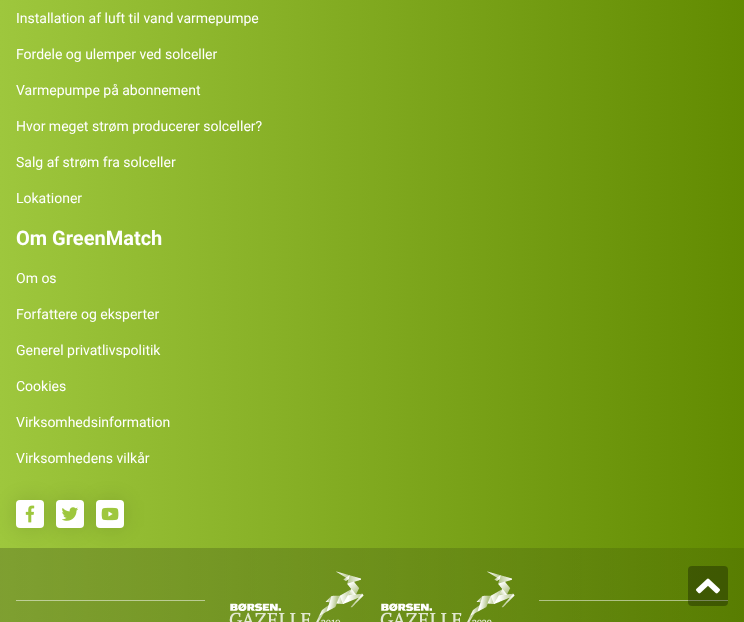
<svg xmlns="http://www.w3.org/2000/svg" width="744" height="622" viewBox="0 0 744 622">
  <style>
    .t1 { font: 14px Roboto; fill: #fff; }
    .t2 { font: bold 20px Roboto; fill: #fff; }
  </style>
  <defs>
    <linearGradient id="g1" gradientUnits="userSpaceOnUse" x1="0" y1="150" x2="744" y2="150"><stop offset="0" stop-color="#9ec73d"/><stop offset="1" stop-color="#628b01"/></linearGradient>
    <linearGradient id="g2" gradientUnits="userSpaceOnUse" x1="0" y1="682" x2="744" y2="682"><stop offset="0" stop-color="#000" stop-opacity="0.2"/><stop offset="1" stop-color="#000" stop-opacity="0.1"/></linearGradient>
  </defs>
  <rect width="100%" height="100%" fill="#fff"/>
  <rect x="0" y="0" width="744" height="622" fill="url(#g1)"/>
  <text x="16" y="23" class="t1">Installation af luft til vand varmepumpe</text>
  <text x="16" y="59" class="t1">Fordele og ulemper ved solceller</text>
  <text x="16" y="95" class="t1">Varmepumpe på abonnement</text>
  <text x="16" y="131" class="t1">Hvor meget strøm producerer solceller?</text>
  <text x="16" y="167" class="t1">Salg af strøm fra solceller</text>
  <text x="16" y="203" class="t1">Lokationer</text>
  <text x="16" y="245" class="t2">Om GreenMatch</text>
  <text x="16" y="283" class="t1">Om os</text>
  <text x="16" y="319" class="t1">Forfattere og eksperter</text>
  <text x="16" y="355" class="t1">Generel privatlivspolitik</text>
  <text x="16" y="391" class="t1">Cookies</text>
  <text x="16" y="427" class="t1">Virksomhedsinformation</text>
  <text x="16" y="463" class="t1">Virksomhedens vilkår</text>
  <rect x="0" y="548" width="744" height="74" fill="url(#g2)"/>
  <rect x="16" y="500" width="28" height="28" rx="4" fill="#0000001f" filter="blur(10px)"/>
  <rect x="16" y="500" width="28" height="28" rx="4" fill="#fff"/>
  <image x="25" y="505" width="10" height="18" href="images/1.png"/>
  <rect x="56" y="500" width="28" height="28" rx="4" fill="#0000001f" filter="blur(10px)"/>
  <rect x="56" y="500" width="28" height="28" rx="4" fill="#fff"/>
  <image x="62" y="507" width="16" height="14" href="images/2.png"/>
  <rect x="96" y="500" width="28" height="28" rx="4" fill="#0000001f" filter="blur(10px)"/>
  <rect x="96" y="500" width="28" height="28" rx="4" fill="#fff"/>
  <image x="101" y="507" width="18" height="14" href="images/3.png"/>
  <rect x="16" y="600" width="189" height="1" fill="#ffffff80"/>
  <image x="229" y="571" width="135" height="51" href="images/4.png"/>
  <image x="380" y="571" width="135" height="51" href="images/5.png"/>
  <rect x="539" y="600" width="189" height="1" fill="#ffffff80"/>
  <rect x="688" y="566" width="40" height="40" rx="4" fill="#0000004d"/>
  <image x="696" y="578" width="24" height="16" href="images/6.png"/>
</svg>
